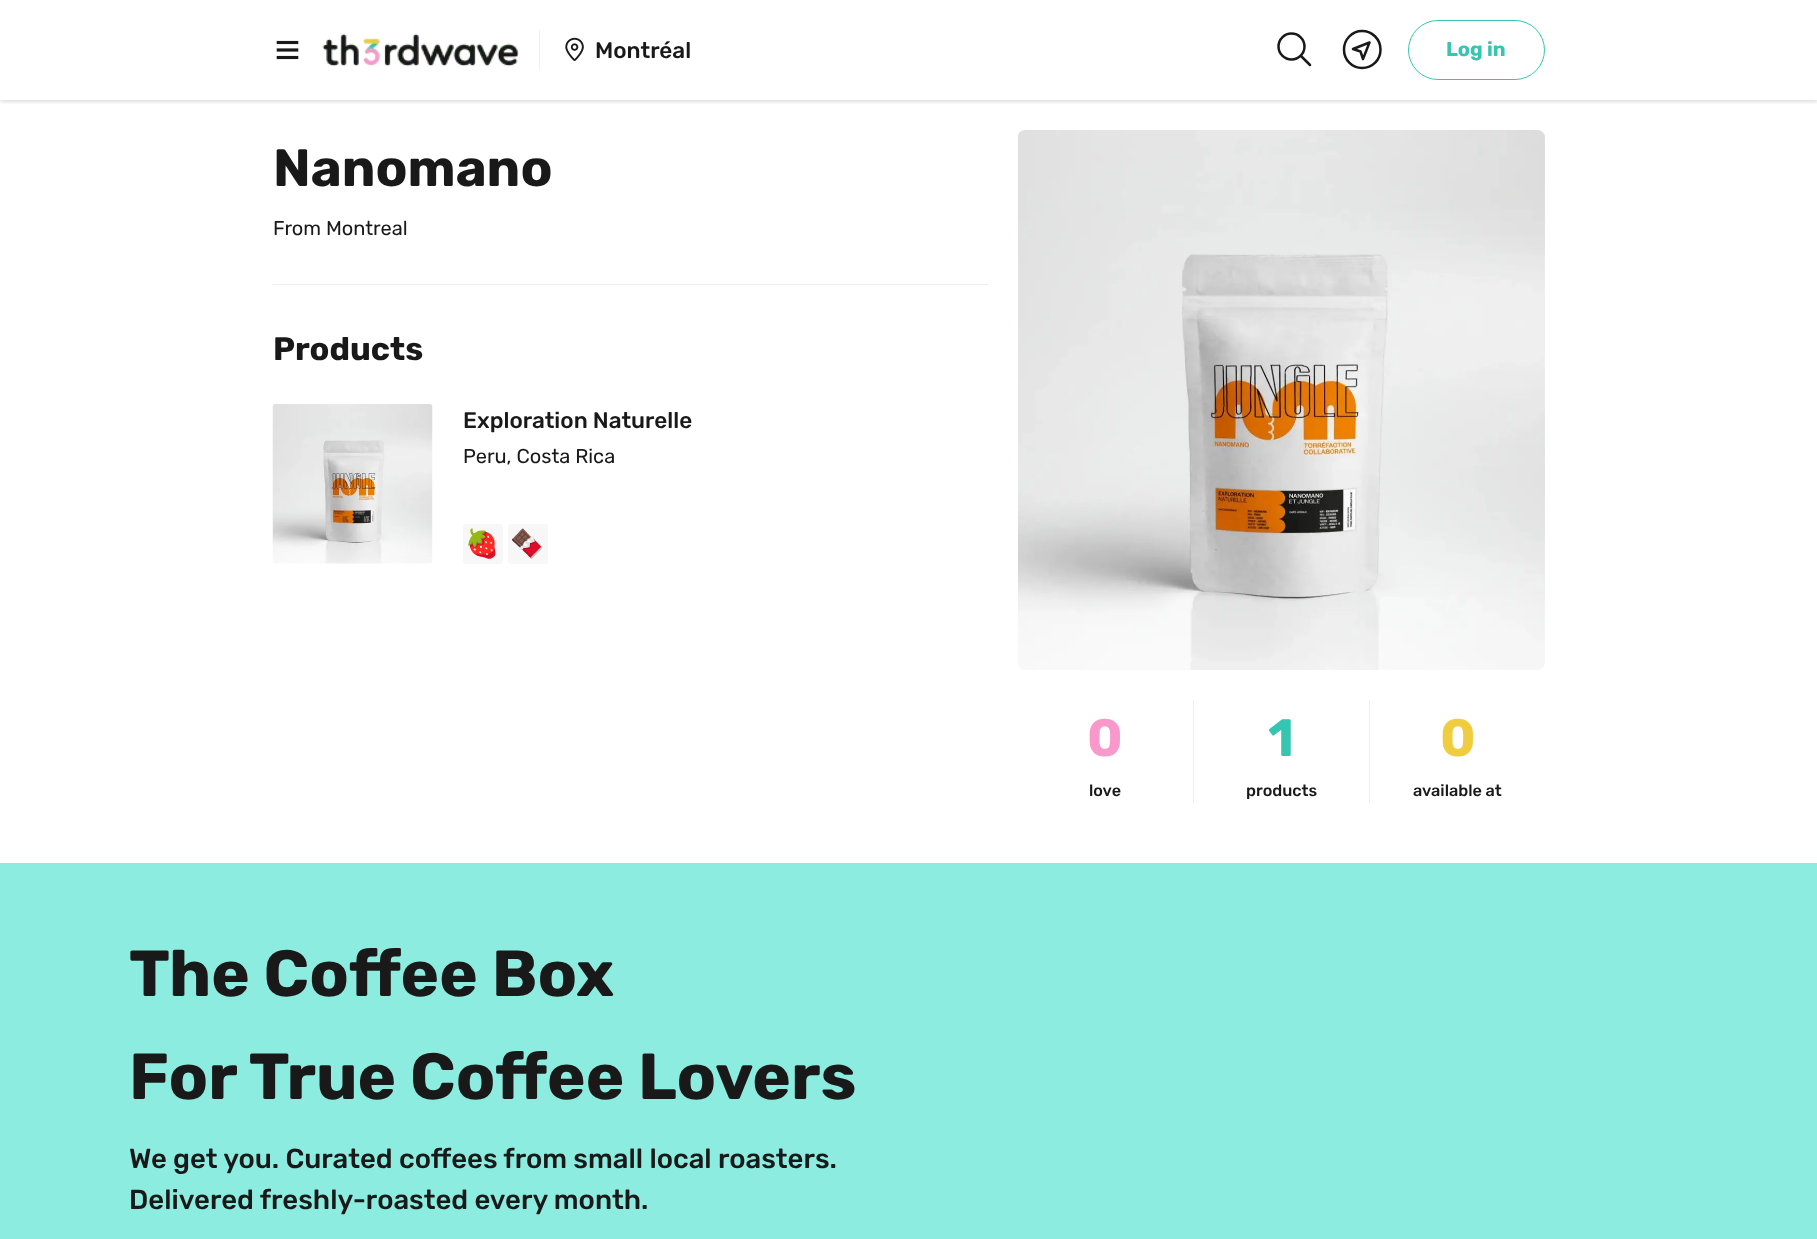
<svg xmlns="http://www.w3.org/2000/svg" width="1817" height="1239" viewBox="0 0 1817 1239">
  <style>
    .t1 { font: 500 22.5px Rubik; fill: #191919; }
    .t2 { font: bold 20px Rubik; fill: #34c6b1; }
    .t3 { font: bold 52.5px Rubik; fill: #191919; }
    .t4 { font: 20px Rubik; fill: #191919; }
    .t5 { font: bold 32.5px Rubik; fill: #191919; }
    .t6 { font: 27.5px Noto Color Emoji; fill: #191919; }
    .t7 { font: bold 52.5px Rubik; fill: #f998cb; }
    .t8 { font: 500 16.25px Rubik; fill: #191919; }
    .t9 { font: bold 52.5px Rubik; fill: #34c6b1; }
    .t10 { font: bold 52.5px Rubik; fill: #efcd3f; }
    .t11 { font: bold 65px Rubik; fill: #191919; }
    .t12 { font: 500 27.5px Rubik; fill: #191919; }
  </style>
  <defs>
    <clipPath id="clip1"><rect x="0" y="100" width="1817" height="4"/></clipPath>
  </defs>
  <rect width="100%" height="100%" fill="#fff"/>
  <g clip-path="url(#clip1)">
    <rect x="0" y="1" width="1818" height="100" fill="#0000002e" filter="blur(2.5px)"/>
  </g>
  <image x="276" y="40" width="23" height="20" href="images/1.png"/>
  <image x="322" y="33" width="197" height="34" href="images/2.png"/>
  <rect x="539" y="30" width="1" height="40" fill="#eee"/>
  <image x="565" y="37" width="19" height="24" href="images/3.png"/>
  <text x="595" y="58" class="t1">Montréal</text>
  <circle cx="1291.5" cy="46.5" r="13" fill="none" stroke="#191919" stroke-width="2.5"/>
  <path d="M1301 56L1310 65" fill="none" stroke="#191919" stroke-width="2.5" stroke-linecap="round" stroke-linejoin="round"/>
  <path d="M1362 68C1352 68 1344 60 1344 49.5C1344 39.5 1352 31 1362 31C1372.5 31 1380.5 39.5 1380.5 49.5C1380.5 60 1372.5 68 1362 68ZM1353 49L1360.5 51.5L1363 59L1369.5 42.5Z" fill="none" stroke="#191919" stroke-width="2.5" stroke-linejoin="round"/>
  <rect x="1408.5" y="20.5" width="136" height="59" rx="29.5" fill="none" stroke="#34c6b1"/>
  <text x="1446" y="56" class="t2">Log in</text>
  <text x="273" y="186" class="t3">Nanomano</text>
  <text x="273" y="235" class="t4">From Montreal</text>
  <rect x="273" y="284" width="715" height="1" fill="#eee"/>
  <text x="273" y="360" class="t5">Products</text>
  <image x="272" y="404" width="161" height="160" href="images/4.png"/>
  <text x="463" y="428" class="t1">Exploration Naturelle</text>
  <text x="463" y="463" class="t4">Peru, Costa Rica</text>
  <rect x="463" y="524" width="40" height="40" rx="4" fill="#f7f7f7"/>
  <text x="465" y="553" class="t6">🍓</text>
  <rect x="508" y="524" width="40" height="40" rx="4" fill="#f7f7f7"/>
  <text x="510" y="553" class="t6">🍫</text>
  <image x="1018" y="130" width="527" height="540" href="images/5.png"/>
  <text x="1087" y="756" class="t7">0</text>
  <text x="1089" y="796" class="t8">love</text>
  <rect x="1193" y="700" width="1" height="103" fill="#eee"/>
  <text x="1268" y="756" class="t9">1</text>
  <text x="1246" y="796" class="t8">products</text>
  <rect x="1369" y="700" width="1" height="103" fill="#eee"/>
  <text x="1440" y="756" class="t10">0</text>
  <text x="1413" y="796" class="t8">available at</text>
  <rect x="0" y="863" width="1817" height="376" fill="#8cecdf"/>
  <text x="129" y="996" class="t11">The Coffee Box</text>
  <text x="129" y="1099" class="t11">For True Coffee Lovers</text>
  <text x="129" y="1168" class="t12">We get you. Curated coffees from small local roasters.</text>
  <text x="129" y="1209" class="t12">Delivered freshly-roasted every month.</text>
</svg>
